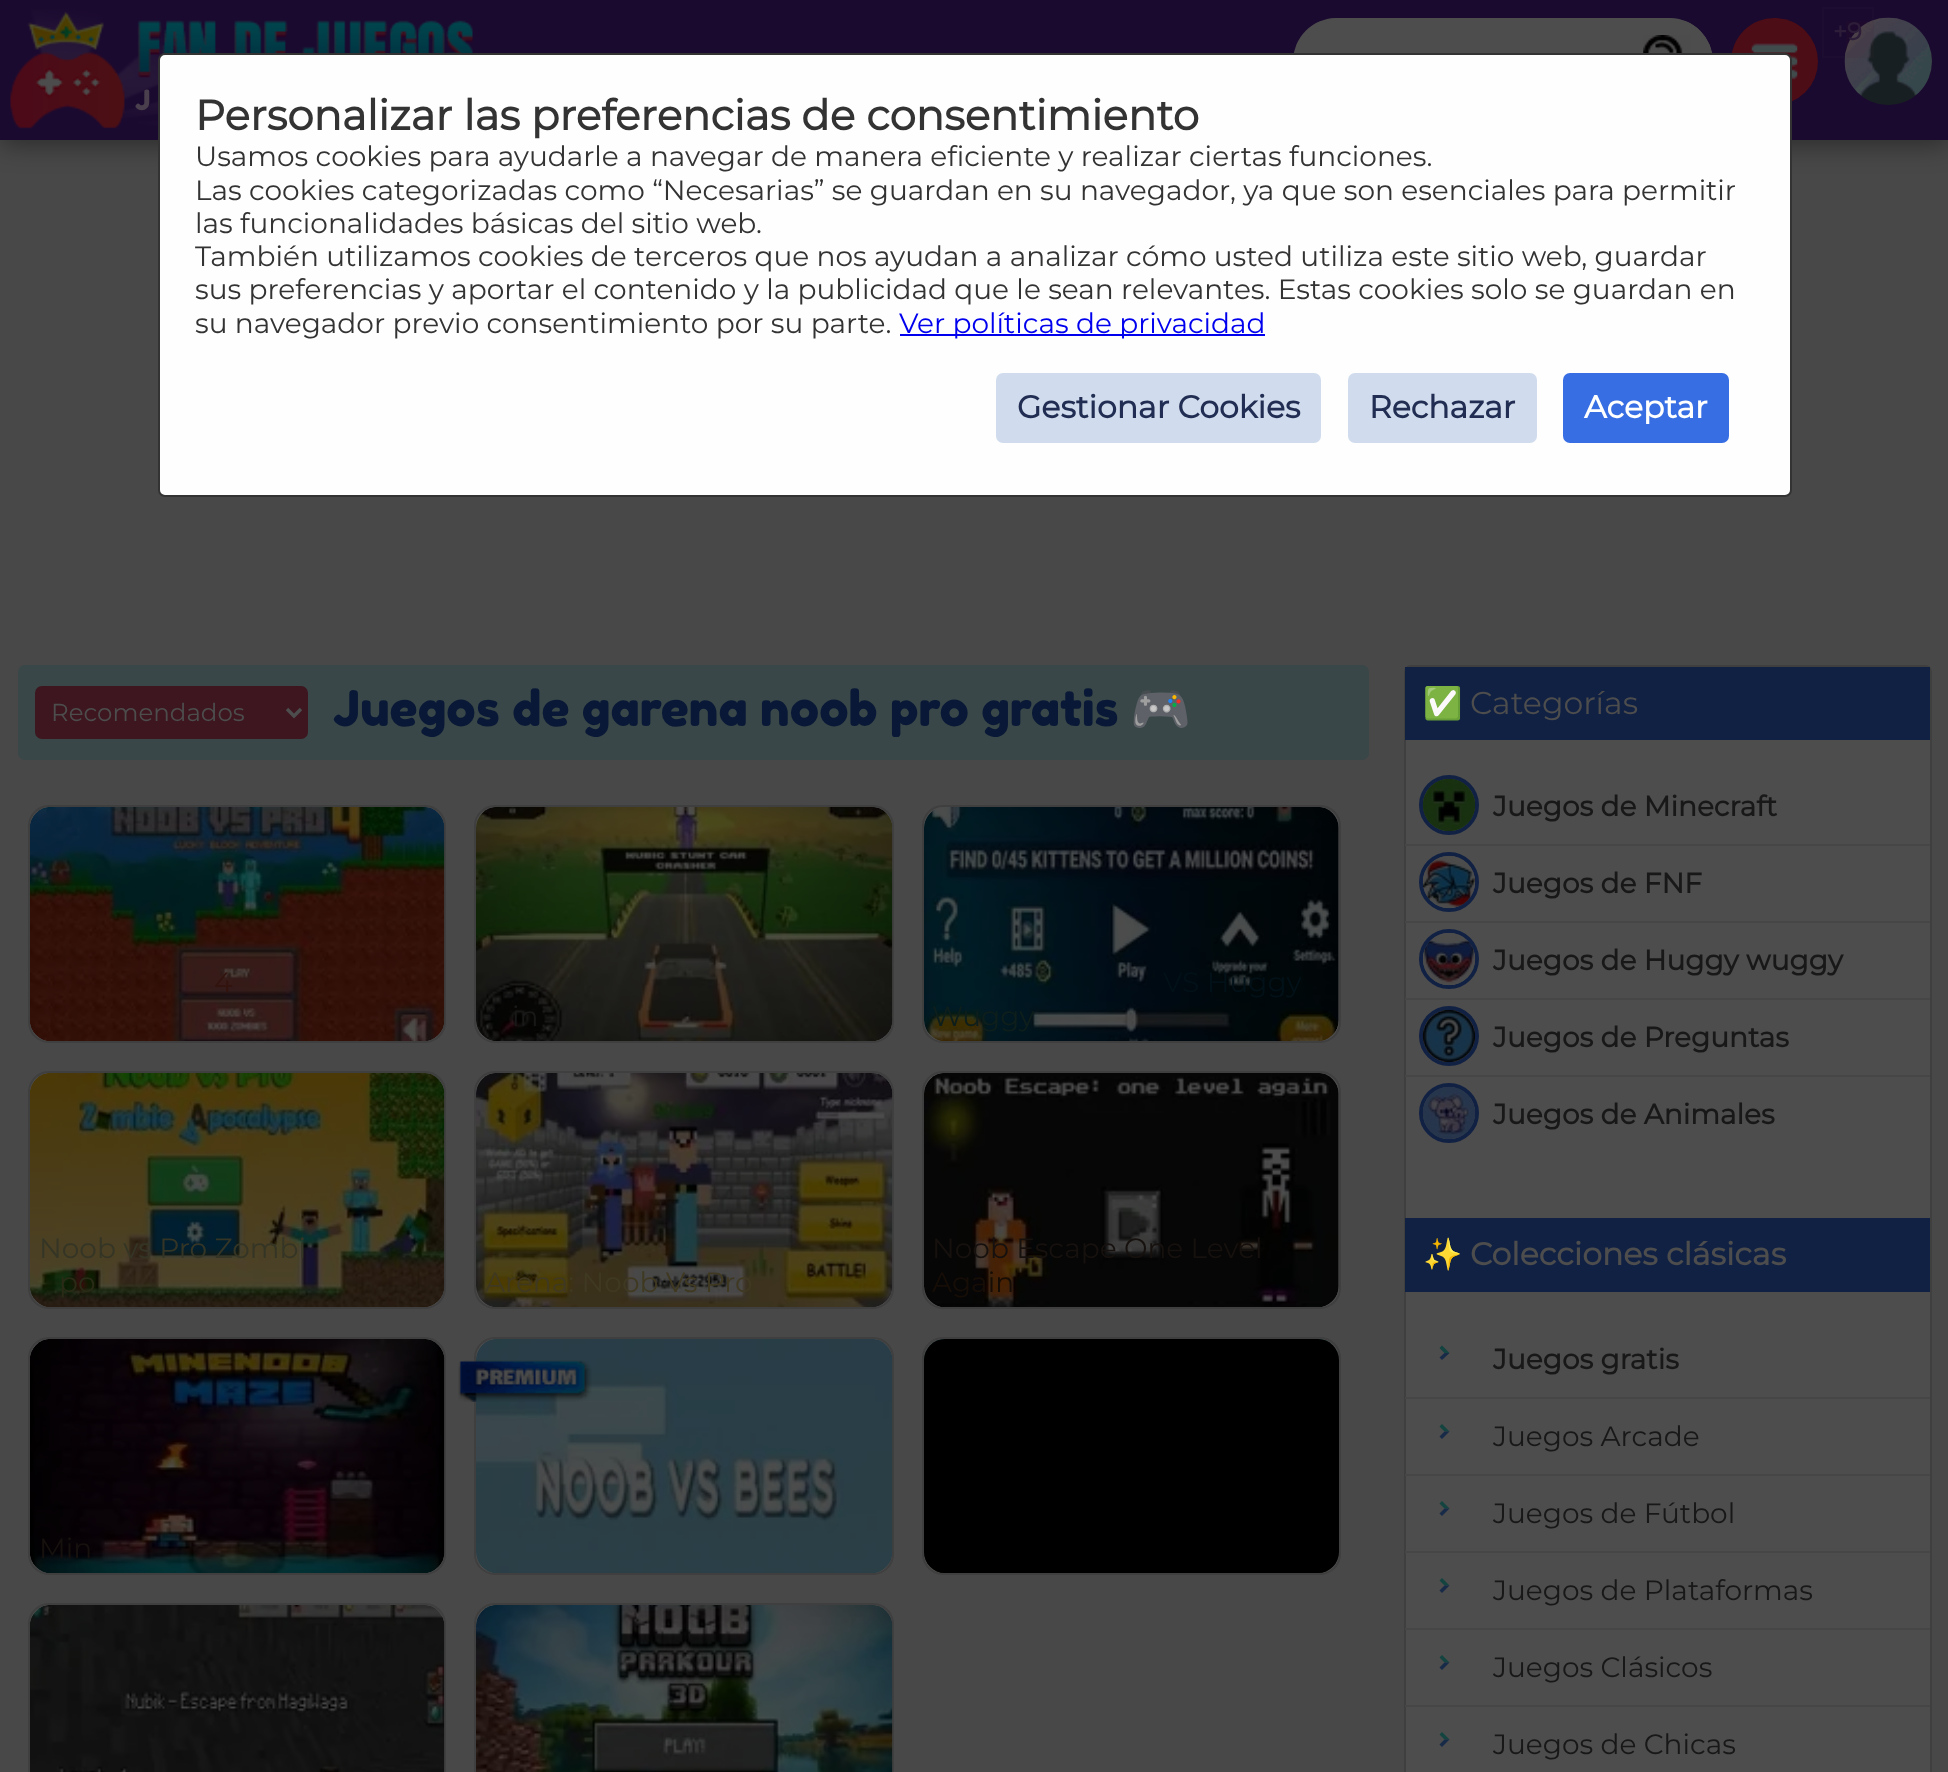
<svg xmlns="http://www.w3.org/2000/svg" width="1948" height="1772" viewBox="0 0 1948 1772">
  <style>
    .t1 { font: bold 24.5px Montserrat; fill: #2d1d38; }
    .t2 { font: 28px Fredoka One; fill: #4a3f4d; }
    .t3 { font: bold 42px Montserrat; fill: #333; }
    .t4 { font: 100 28px Montserrat; fill: #333; }
    .t5 { font: 100 28px Montserrat; fill: #00e; }
    .t6 { font: bold 31.5px Montserrat; fill: #212d52; }
    .t7 { font: bold 31.5px Montserrat; fill: #fff; }
    .t8 { font: 100 24.5px Montserrat; fill: #4d4d4d; }
    .t9 { font: 49px Fredoka One; fill: #091836; }
    .t10 { font: 49px Noto Color Emoji; fill: #091836; }
    .t11 { font: 31.5px Noto Color Emoji; fill: #4d4d4d; }
    .t12 { font: 100 31.5px Montserrat; fill: #4d4d4d; }
    .t13 { font: bold 28px Montserrat; fill: #181818; }
    .t14 { font: bold 31.5px Noto Color Emoji; fill: #4d4d4d; }
    .t15 { font: bold 31.5px Montserrat; fill: #4d4d4d; }
    .t16 { font: 100 28px Montserrat; fill: #181818; }
    .t17 { font: 100 28px Montserrat; fill: #32130d; }
    .t18 { font: 100 28px Montserrat; fill: #021118; }
    .t19 { font: 100 28px Montserrat; fill: #0e1e1b; }
    .t20 { font: 100 28px Montserrat; fill: #353526; }
    .t21 { font: 100 28px Montserrat; fill: #292b16; }
    .t22 { font: 100 28px Montserrat; fill: #403922; }
    .t23 { font: 100 28px Montserrat; fill: #16110e; }
    .t24 { font: 100 28px Montserrat; fill: #160d07; }
  </style>
  <defs>
    <clipPath id="clip1"><rect x="1293" y="18" width="420" height="87" rx="43.5"/></clipPath>
    <clipPath id="clip2"><rect x="333" y="681" width="1018" height="56"/></clipPath>
  </defs>
  <rect width="100%" height="100%" fill="#494848"/>
  <rect x="0" y="5" width="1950" height="140" fill="#00000063" filter="blur(13px)"/>
  <rect x="0" y="0" width="1948" height="140" fill="#1b0a2f"/>
  <image x="10" y="9" width="465" height="120" href="images/1.png"/>
  <rect x="1293" y="18" width="420" height="87" rx="43.5" fill="#4d4d4d"/>
  <g clip-path="url(#clip1)">
    <path d="M1332 18H1669.5C1693.5 18 1713 37.5 1713 61.5C1713 85.5 1693.5 105 1669.5 105H1332C1328 105 1325 102 1325 98V25C1325 21 1328 18 1332 18Z" fill="#4d4d4d"/>
  </g>
  <image x="1643" y="35" width="48" height="18" href="images/2.png"/>
  <circle cx="1774.5" cy="61.5" r="43.5" fill="#4d0d16"/>
  <image x="1751" y="43" width="47" height="37" href="images/3.png"/>
  <image x="1844" y="17" width="88" height="88" href="images/4.png"/>
  <rect x="1846" y="21" width="28" height="37" fill="#4d0f1d0d"/>
  <rect x="1823" y="8" width="50" height="49" fill="none" stroke="#4d4d4d0d" stroke-width="2"/>
  <text x="1833" y="40" class="t1">+9</text>
  <text x="135" y="110" class="t2">J</text>
  <rect x="159" y="54" width="1632" height="442" rx="6" fill="#fefefe" stroke="#333" stroke-width="2"/>
  <text x="195" y="130" class="t3">Personalizar las preferencias de consentimiento</text>
  <text x="195" y="166" class="t4">Usamos cookies para ayudarle a navegar de manera eficiente y realizar ciertas funciones.</text>
  <text x="195" y="200" class="t4">Las cookies categorizadas como “Necesarias” se guardan en su navegador, ya que son esenciales para permitir</text>
  <text x="195" y="233" class="t4">las funcionalidades básicas del sitio web.</text>
  <text x="195" y="266" class="t4">También utilizamos cookies de terceros que nos ayudan a analizar cómo usted utiliza este sitio web, guardar</text>
  <text x="195" y="299" class="t4">sus preferencias y aportar el contenido y la publicidad que le sean relevantes. Estas cookies solo se guardan en</text>
  <text x="195" y="333" class="t4">su navegador previo consentimiento por su parte.</text>
  <rect x="900" y="334" width="365" height="2" fill="#00e"/>
  <text x="899" y="333" class="t5">Ver políticas de privacidad</text>
  <rect x="996" y="373" width="325" height="70" rx="7" fill="#d0dced"/>
  <text x="1017" y="418" class="t6">Gestionar Cookies</text>
  <rect x="1348" y="373" width="189" height="70" rx="7" fill="#d0dced"/>
  <text x="1369" y="418" class="t6">Rechazar</text>
  <rect x="1563" y="373" width="166" height="70" rx="7" fill="#376ee3"/>
  <text x="1584" y="418" class="t7">Aceptar</text>
  <rect x="18" y="665" width="1351" height="95" rx="7" fill="#394748"/>
  <rect x="35" y="686" width="273" height="53" rx="7" fill="#3d161f"/>
  <path d="M287 709L294 716L301 709" fill="none" stroke="#4d4d4d" stroke-width="3.5"/>
  <text x="51" y="721" class="t8">Recomendados</text>
  <g clip-path="url(#clip2)">
    <text x="333" y="726" class="t9">Juegos de garena noob pro gratis</text>
  </g>
  <text x="1130" y="726" class="t10">🎮</text>
  <rect x="1405" y="666" width="526" height="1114" rx="6" fill="#4d4d4d" stroke="#3f3f3f" stroke-width="2"/>
  <rect x="1405" y="667" width="525" height="73" fill="#112144"/>
  <text x="1423" y="714" class="t11">✅</text>
  <text x="1470" y="714" class="t12">Categorías</text>
  <rect x="1405" y="844" width="525" height="2" fill="#464646"/>
  <circle cx="1449" cy="805" r="28" fill="none" stroke="#112144" stroke-width="4"/>
  <image x="1422" y="778" width="54" height="54" href="images/5.png"/>
  <text x="1493" y="816" class="t13">Juegos de Minecraft</text>
  <rect x="1405" y="921" width="525" height="2" fill="#464646"/>
  <circle cx="1449" cy="882" r="28" fill="none" stroke="#112144" stroke-width="4"/>
  <image x="1422" y="855" width="54" height="54" href="images/6.png"/>
  <text x="1493" y="893" class="t13">Juegos de FNF</text>
  <rect x="1405" y="998" width="525" height="2" fill="#464646"/>
  <circle cx="1449" cy="959" r="28" fill="none" stroke="#112144" stroke-width="4"/>
  <image x="1422" y="932" width="54" height="54" href="images/7.png"/>
  <text x="1493" y="970" class="t13">Juegos de Huggy wuggy</text>
  <rect x="1405" y="1075" width="525" height="2" fill="#464646"/>
  <circle cx="1449" cy="1036" r="28" fill="none" stroke="#112144" stroke-width="4"/>
  <image x="1422" y="1009" width="54" height="54" href="images/8.png"/>
  <text x="1493" y="1047" class="t13">Juegos de Preguntas</text>
  <circle cx="1449" cy="1113" r="28" fill="none" stroke="#112144" stroke-width="4"/>
  <image x="1422" y="1086" width="53" height="54" href="images/9.png"/>
  <text x="1493" y="1124" class="t13">Juegos de Animales</text>
  <rect x="1405" y="1218" width="525" height="74" fill="#112144"/>
  <text x="1423" y="1265" class="t14">✨</text>
  <text x="1470" y="1265" class="t15">Colecciones clásicas</text>
  <rect x="1405" y="1397" width="525" height="2" fill="#464646"/>
  <path d="M1442 1345.5L1449.5 1353H1444.5L1439.5 1348Z" fill="#134440"/>
  <path d="M1449.5 1353L1442 1360L1439.5 1357.5L1444.5 1353Z" fill="#172b49"/>
  <text x="1493" y="1369" class="t13">Juegos gratis</text>
  <rect x="1405" y="1474" width="525" height="2" fill="#464646"/>
  <path d="M1442 1424L1449.5 1431.5H1444.5L1439.5 1426.5Z" fill="#134440"/>
  <path d="M1449.5 1431.5L1442 1439L1439.5 1436.5L1444.5 1431.5Z" fill="#172b49"/>
  <text x="1493" y="1446" class="t16">Juegos Arcade</text>
  <rect x="1405" y="1551" width="525" height="2" fill="#464646"/>
  <path d="M1442 1501L1449.5 1508.5H1444.5L1439.5 1503.5Z" fill="#134440"/>
  <path d="M1449.5 1508.5L1442 1516L1439.5 1513.5L1444.5 1508.5Z" fill="#172b49"/>
  <text x="1493" y="1523" class="t16">Juegos de Fútbol</text>
  <rect x="1405" y="1628" width="525" height="2" fill="#464646"/>
  <path d="M1442 1578L1449.5 1585.5H1444.5L1439.5 1580.5Z" fill="#134440"/>
  <path d="M1449.5 1585.5L1442 1593L1439.5 1590.5L1444.5 1585.5Z" fill="#172b49"/>
  <text x="1493" y="1600" class="t16">Juegos de Plataformas</text>
  <rect x="1405" y="1705" width="525" height="2" fill="#464646"/>
  <path d="M1442 1655L1449.5 1662.5H1444.5L1439.5 1657.5Z" fill="#134440"/>
  <path d="M1449.5 1662.5L1442 1670L1439.5 1667.5L1444.5 1662.5Z" fill="#172b49"/>
  <text x="1493" y="1677" class="t16">Juegos Clásicos</text>
  <path d="M1442 1732L1449.5 1739.5H1444.5L1439.5 1734.5Z" fill="#134440"/>
  <path d="M1449.5 1739.5L1442 1747L1439.5 1744.5L1444.5 1739.5Z" fill="#172b49"/>
  <text x="1493" y="1754" class="t16">Juegos de Chicas</text>
  <rect x="29" y="806" width="416" height="236" rx="20" fill="#4d4d4d" stroke="#3f3f3f" stroke-width="2"/>
  <image x="30" y="807" width="415" height="234" href="images/10.png"/>
  <text x="214" y="992" class="t17">4</text>
  <rect x="475" y="806" width="418" height="236" rx="20" fill="#4d4d4d" stroke="#3f3f3f" stroke-width="2"/>
  <image x="476" y="807" width="417" height="234" href="images/11.png"/>
  <text x="512" y="1026" class="t16">in</text>
  <rect x="923" y="806" width="417" height="236" rx="20" fill="#4d4d4d" stroke="#3f3f3f" stroke-width="2"/>
  <image x="924" y="807" width="415" height="234" href="images/12.png"/>
  <text x="1163" y="992" class="t18">VS Huggy</text>
  <text x="932" y="1026" class="t19">Wuggy</text>
  <rect x="29" y="1072" width="416" height="236" rx="20" fill="#4d4d4d" stroke="#3f3f3f" stroke-width="2"/>
  <image x="30" y="1073" width="415" height="234" href="images/13.png"/>
  <text x="39" y="1258" class="t20">Noob vs Pro Zombi</text>
  <text x="59" y="1292" class="t21">po</text>
  <rect x="475" y="1072" width="418" height="236" rx="20" fill="#4d4d4d" stroke="#3f3f3f" stroke-width="2"/>
  <image x="476" y="1073" width="417" height="234" href="images/14.png"/>
  <text x="485" y="1292" class="t22">Arena: Noob Vs Pro</text>
  <rect x="923" y="1072" width="417" height="236" rx="20" fill="#4d4d4d" stroke="#3f3f3f" stroke-width="2"/>
  <image x="924" y="1073" width="415" height="234" href="images/15.png"/>
  <text x="932" y="1258" class="t23">Noob Escape One Level</text>
  <text x="932" y="1292" class="t24">Again</text>
  <rect x="29" y="1338" width="416" height="236" rx="20" fill="#4d4d4d" stroke="#3f3f3f" stroke-width="2"/>
  <image x="30" y="1339" width="415" height="234" href="images/16.png"/>
  <text x="39" y="1558" class="t23">Min</text>
  <rect x="475" y="1338" width="418" height="236" rx="20" fill="#4d4d4d" stroke="#3f3f3f" stroke-width="2"/>
  <image x="476" y="1339" width="417" height="234" href="images/17.png"/>
  <image x="458" y="1360" width="134" height="42" href="images/18.png"/>
  <rect x="923" y="1338" width="417" height="236" rx="20" fill="#4d4d4d" stroke="#3f3f3f" stroke-width="2"/>
  <image x="924" y="1339" width="415" height="234" href="images/19.png"/>
  <rect x="924" y="1339" width="415" height="234" rx="21" fill="#000"/>
  <rect x="29" y="1604" width="416" height="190" rx="20" fill="#4d4d4d" stroke="#3f3f3f" stroke-width="2"/>
  <image x="30" y="1605" width="415" height="167" href="images/20.png"/>
  <rect x="475" y="1604" width="418" height="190" rx="20" fill="#4d4d4d" stroke="#3f3f3f" stroke-width="2"/>
  <image x="476" y="1605" width="417" height="167" href="images/21.png"/>
</svg>
